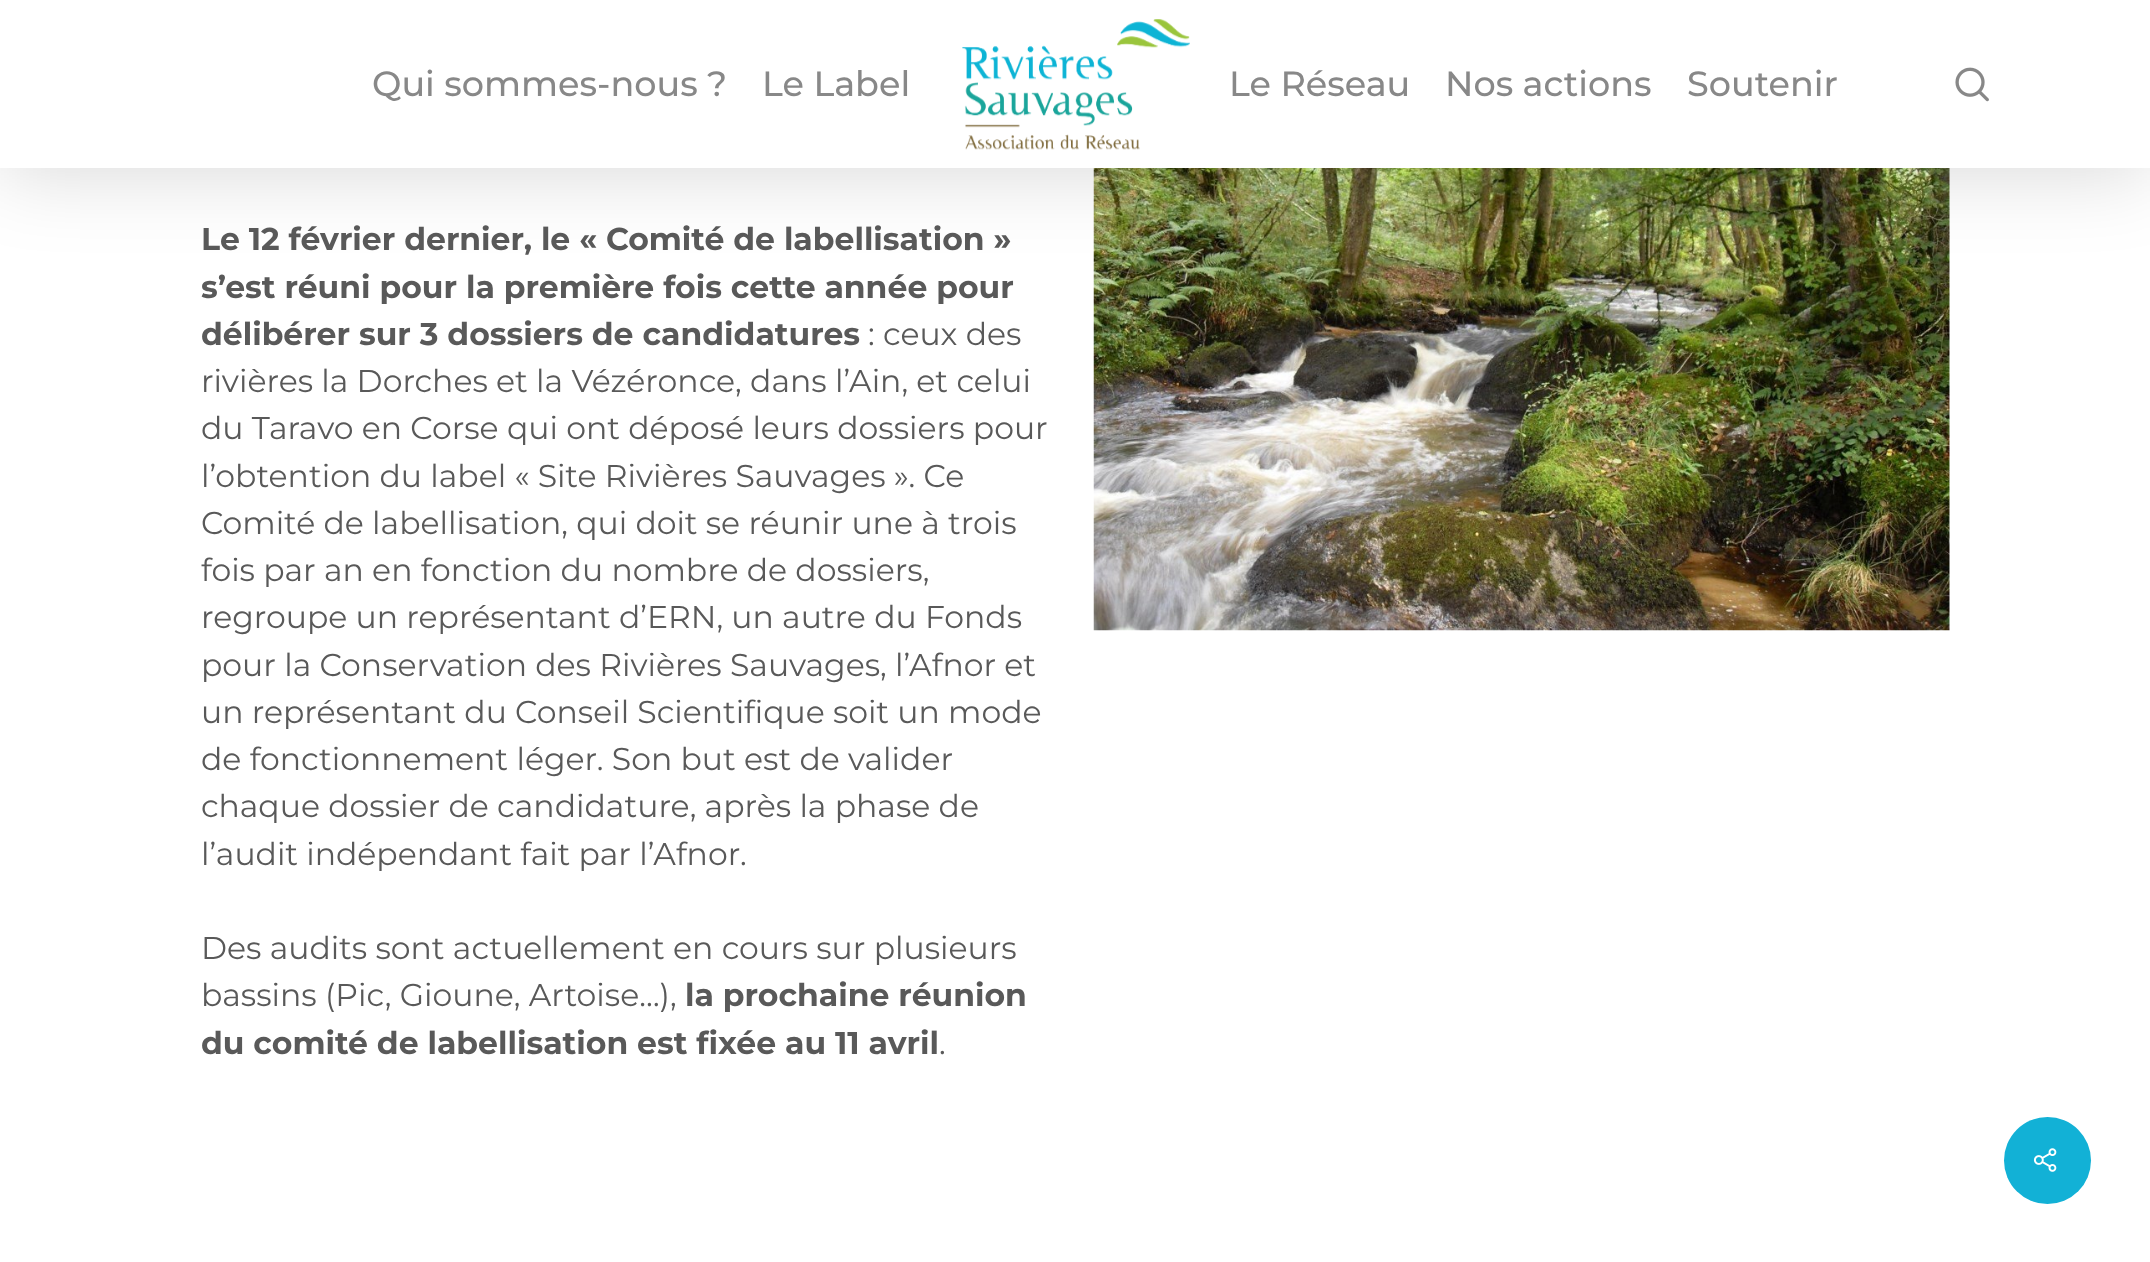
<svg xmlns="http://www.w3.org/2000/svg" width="2150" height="1262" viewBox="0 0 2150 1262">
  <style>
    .t1 { font: 500 35px Montserrat; fill: #888; }
    .t2 { font: bold 31.5px Montserrat; fill: #595959; }
    .t3 { font: 31.5px Montserrat; fill: #595959; }
  </style>
  <rect width="100%" height="100%" fill="#fff"/>
  <image x="1093" y="168" width="857" height="463" href="images/3.png"/>
  <rect x="0" y="-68" width="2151" height="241" fill="#00000026" filter="blur(39.5px)"/>
  <rect x="0" y="0" width="2150" height="168" fill="#fff"/>
  <image x="962" y="19" width="228" height="131" href="images/1.png"/>
  <text x="372" y="96" class="t1">Qui sommes-nous ?</text>
  <text x="762" y="96" class="t1">Le Label</text>
  <text x="1229" y="96" class="t1">Le Réseau</text>
  <text x="1445" y="96" class="t1">Nos actions</text>
  <text x="1687" y="96" class="t1">Soutenir</text>
  <image x="1955" y="67" width="34" height="35" href="images/2.png"/>
  <text x="201" y="250" class="t2">Le 12 février dernier, le « Comité de labellisation »</text>
  <text x="201" y="298" class="t2">s’est réuni pour la première fois cette année pour</text>
  <text x="201" y="345" class="t2">délibérer sur 3 dossiers de candidatures</text>
  <text x="868" y="345" class="t3">: ceux des</text>
  <text x="201" y="392" class="t3">rivières la Dorches et la Vézéronce, dans l’Ain, et celui</text>
  <text x="201" y="439" class="t3">du Taravo en Corse qui ont déposé leurs dossiers pour</text>
  <text x="201" y="487" class="t3">l’obtention du label « Site Rivières Sauvages ». Ce</text>
  <text x="201" y="534" class="t3">Comité de labellisation, qui doit se réunir une à trois</text>
  <text x="201" y="581" class="t3">fois par an en fonction du nombre de dossiers,</text>
  <text x="201" y="628" class="t3">regroupe un représentant d’ERN, un autre du Fonds</text>
  <text x="201" y="676" class="t3">pour la Conservation des Rivières Sauvages, l’Afnor et</text>
  <text x="201" y="723" class="t3">un représentant du Conseil Scientifique soit un mode</text>
  <text x="201" y="770" class="t3">de fonctionnement léger. Son but est de valider</text>
  <text x="201" y="817" class="t3">chaque dossier de candidature, après la phase de</text>
  <text x="201" y="865" class="t3">l’audit indépendant fait par l’Afnor.</text>
  <text x="201" y="959" class="t3">Des audits sont actuellement en cours sur plusieurs</text>
  <text x="201" y="1006" class="t3">bassins (Pic, Gioune, Artoise…),</text>
  <text x="685" y="1006" class="t2">la prochaine réunion</text>
  <text x="201" y="1054" class="t2">du comité de labellisation est fixée au 11 avril</text>
  <text x="939" y="1054" class="t3">.</text>
  <circle cx="2047.5" cy="1160.5" r="43.5" fill="#12b1d6"/>
  <image x="2033" y="1148" width="24" height="24" href="images/4.png"/>
</svg>
